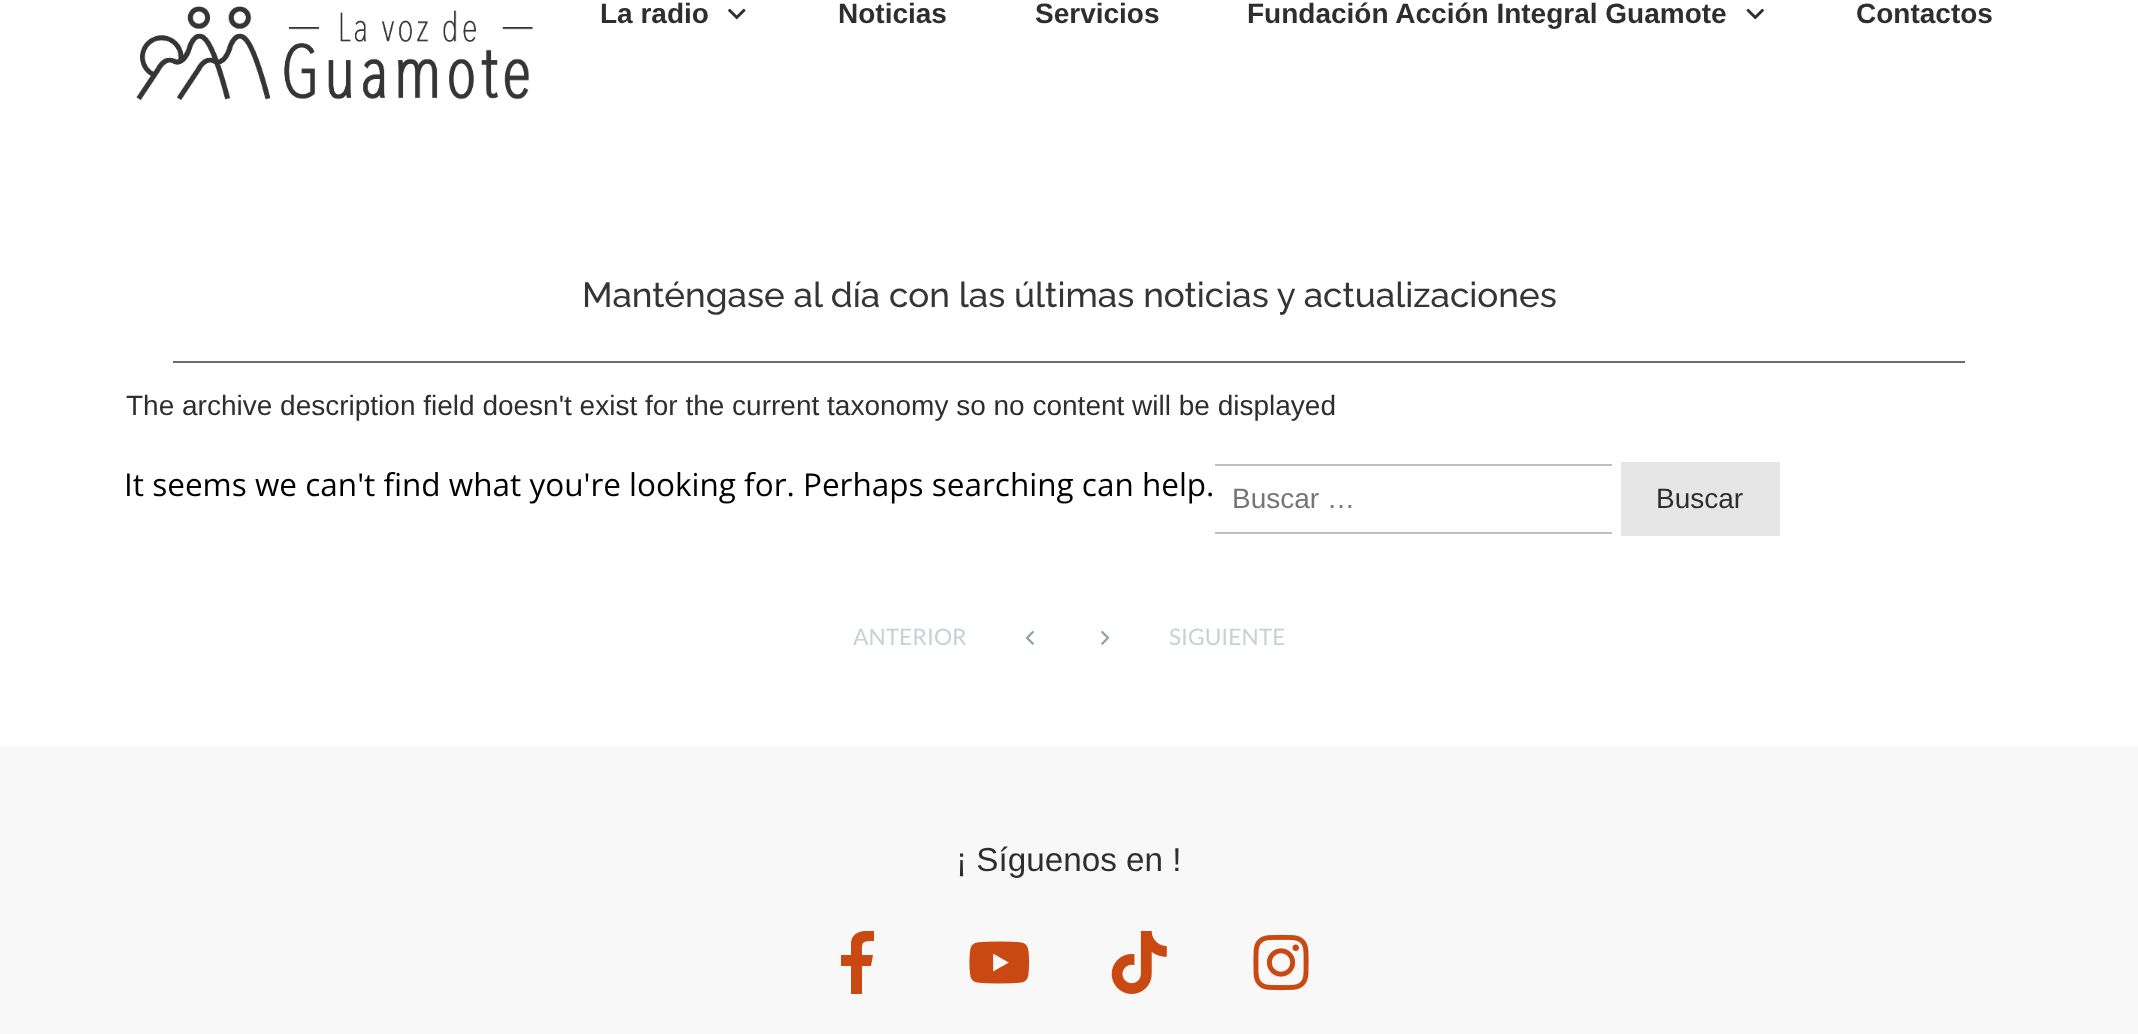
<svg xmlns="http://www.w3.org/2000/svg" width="2138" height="1034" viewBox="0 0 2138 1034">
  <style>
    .t1 { font: bold 28px Liberation Sans; fill: #2e2e2e; }
    .t2 { font: 500 35px Raleway; fill: #353535; }
    .t3 { font: 28px Liberation Sans; fill: #2e2e2e; }
    .t4 { font: 31.5px Open Sans; fill: #000; }
    .t5 { font: 28px Liberation Sans; fill: #757575; }
    .t6 { font: 22.75px Lato; fill: #c8d1d6; }
    .t7 { font: 33.25px Liberation Sans; fill: #2e2e2e; }
  </style>
  <defs>
    <clipPath id="clip1"><rect x="826" y="931" width="63" height="63"/></clipPath>
  </defs>
  <rect width="100%" height="100%" fill="#fff"/>
  <image x="136" y="6" width="397" height="95" href="images/1.png"/>
  <text x="600" y="23" class="t1">La radio</text>
  <image x="728" y="8" width="18" height="12" href="images/2.png"/>
  <text x="838" y="23" class="t1">Noticias</text>
  <text x="1035" y="23" class="t1">Servicios</text>
  <text x="1247" y="23" class="t1">Fundación Acción Integral Guamote</text>
  <image x="1746" y="8" width="18" height="12" href="images/3.png"/>
  <text x="1856" y="23" class="t1">Contactos</text>
  <rect x="173" y="361" width="1792" height="2" fill="#6a6b6c"/>
  <text x="582" y="307" class="t2">Manténgase al día con las últimas noticias y actualizaciones</text>
  <text x="126" y="415" class="t3">The archive description field doesn't exist for the current taxonomy so no content will be displayed</text>
  <text x="124" y="496" class="t4">It seems we can't find what you're looking for. Perhaps searching can help.</text>
  <rect x="1215" y="464" width="397" height="2" fill="#bfbfbf"/>
  <rect x="1215" y="532" width="397" height="2" fill="#bfbfbf"/>
  <text x="1232" y="508" class="t5">Buscar …</text>
  <rect x="1621" y="462" width="159" height="74" fill="#e6e6e6"/>
  <text x="1656" y="508" class="t3">Buscar</text>
  <text x="853" y="645" class="t6">ANTERIOR</text>
  <image x="1025" y="630" width="9" height="15" href="images/4.png"/>
  <image x="1101" y="630" width="9" height="15" href="images/5.png"/>
  <text x="1169" y="645" class="t6">SIGUIENTE</text>
  <rect x="0" y="746" width="2138" height="288" fill="#f8f8f8"/>
  <text x="956" y="871" class="t7">¡ Síguenos en !</text>
  <g clip-path="url(#clip1)">
    <path d="M851 994V966H841V955H851V942C853 931 864 930 874 931V941C861 941 862 942 862 955H873L871 966H862V994" fill="#ca4912"/>
  </g>
  <image x="969" y="941" width="61" height="43" href="images/6.png"/>
  <image x="1111" y="931" width="56" height="63" href="images/7.png"/>
  <image x="1253" y="934" width="56" height="57" href="images/8.png"/>
</svg>
